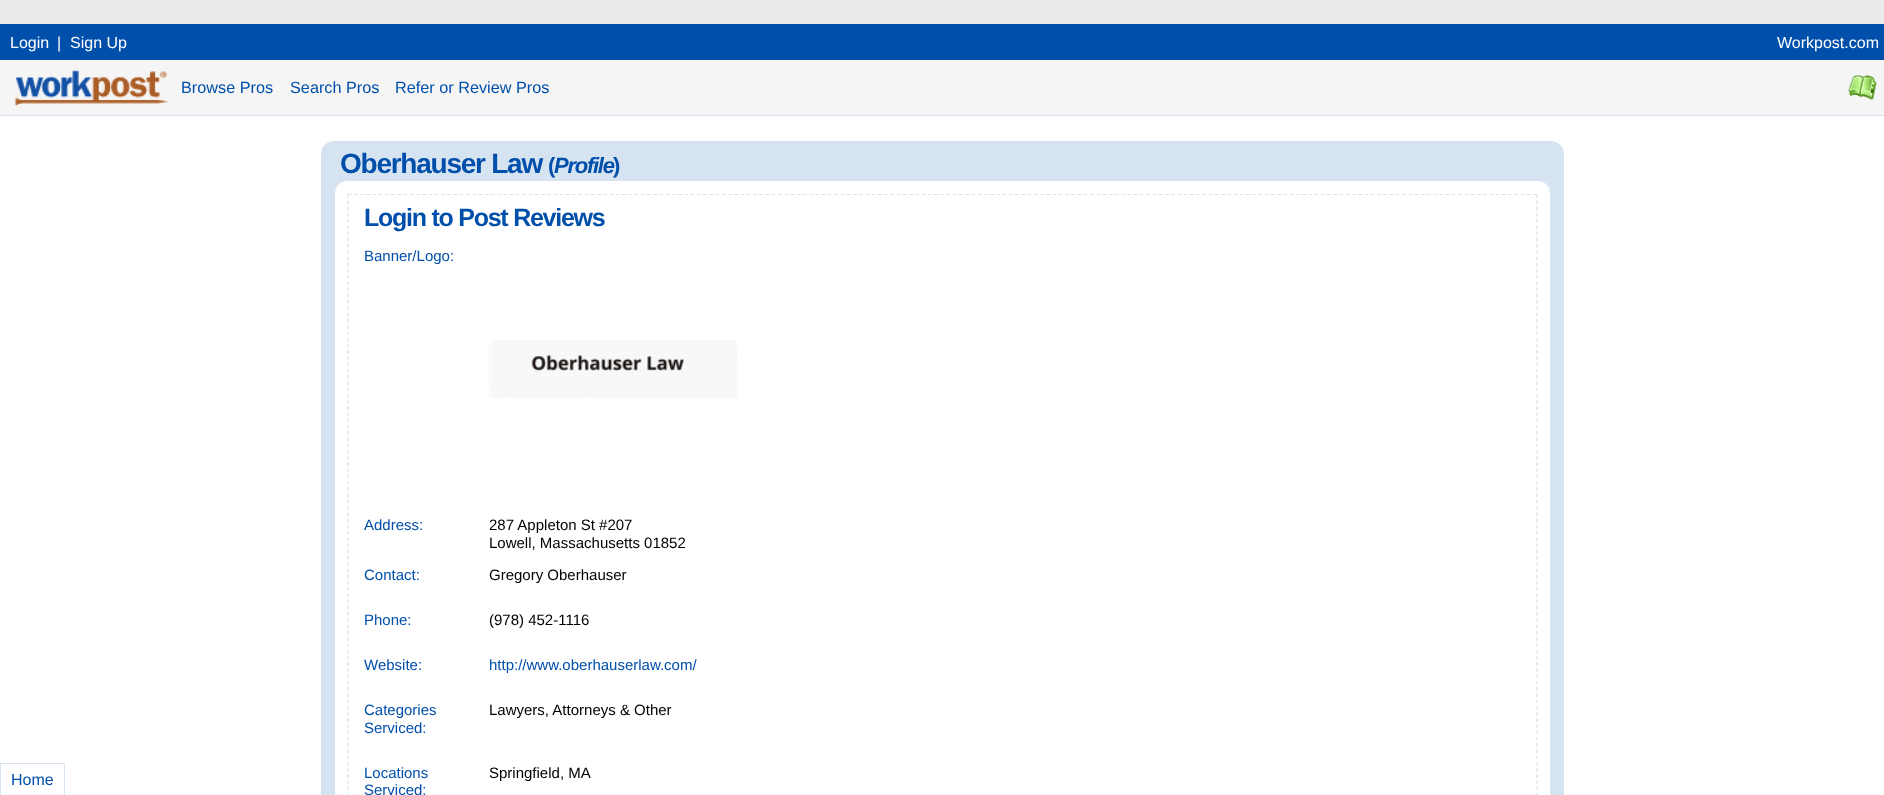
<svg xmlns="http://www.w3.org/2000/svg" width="1884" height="795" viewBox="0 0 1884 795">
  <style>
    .t1 { font: 16px Liberation Sans; fill: #fff; }
    .t2 { font: 16.25px Liberation Sans; fill: #004faa; }
    .t3 { font: bold 28px Liberation Sans; letter-spacing: -1.25px; fill: #004faa; }
    .t4 { font: bold 22px Liberation Sans; letter-spacing: -1.25px; fill: #004faa; }
    .t5 { font: italic bold 22px Liberation Sans; letter-spacing: -1.25px; fill: #004faa; }
    .t6 { font: bold 25px Liberation Sans; letter-spacing: -1.25px; fill: #004faa; }
    .t7 { font: 15px Liberation Sans; fill: #004faa; }
    .t8 { font: 15px Liberation Sans; fill: #000; }
    .t9 { font: 16px Liberation Sans; fill: #004faa; }
  </style>
  <rect width="100%" height="100%" fill="#fff"/>
  <rect x="0" y="0" width="1884" height="24" fill="#ebebeb"/>
  <rect x="0" y="24" width="1884" height="36" fill="#004faa"/>
  <text x="10" y="48" class="t1">Login</text>
  <text x="57" y="48" class="t1">|</text>
  <text x="70" y="48" class="t1">Sign Up</text>
  <text x="1777" y="48" class="t1">Workpost.com</text>
  <rect x="0" y="60" width="1884" height="55" fill="#f5f5f5"/>
  <rect x="0" y="115" width="1884" height="1" fill="#d6e3f1"/>
  <image x="14" y="70" width="154" height="36" href="images/1.png"/>
  <text x="181" y="93" class="t2">Browse Pros</text>
  <text x="290" y="93" class="t2">Search Pros</text>
  <text x="395" y="93" class="t2">Refer or Review Pros</text>
  <image x="1848" y="74" width="29" height="26" href="images/2.png"/>
  <rect x="327.5" y="147.5" width="1230" height="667" rx="6.5" fill="#d6e3f1" stroke="#d6e3f1" stroke-width="13"/>
  <text x="340" y="173" class="t3">Oberhauser Law</text>
  <text x="548" y="173" class="t4">(</text>
  <text x="554" y="173" class="t5">Profile</text>
  <text x="613" y="173" class="t4">)</text>
  <rect x="334.5" y="180.5" width="1216" height="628" rx="12.5" fill="#fff" stroke="#d6e3f1"/>
  <path d="M347.5 194.5H1537.5" fill="none" stroke="#d6e3f1" stroke-width="1.2" stroke-dasharray="3.75 2.49"/>
  <path d="M1537 194V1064" fill="none" stroke="#d6e3f1" stroke-width="1.2" stroke-dasharray="3.75 2.49"/>
  <path d="M348 194V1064" fill="none" stroke="#d6e3f1" stroke-width="1.2" stroke-dasharray="3.75 2.49"/>
  <text x="364" y="226" class="t6">Login to Post Reviews</text>
  <text x="364" y="261" class="t7">Banner/Logo:</text>
  <image x="489" y="340" width="248" height="58" href="images/3.png"/>
  <text x="364" y="530" class="t7">Address:</text>
  <text x="489" y="530" class="t8">287 Appleton St #207</text>
  <text x="489" y="548" class="t8">Lowell, Massachusetts 01852</text>
  <text x="364" y="580" class="t7">Contact:</text>
  <text x="489" y="580" class="t8">Gregory Oberhauser</text>
  <text x="364" y="625" class="t7">Phone:</text>
  <text x="489" y="625" class="t8">(978) 452-1116</text>
  <text x="364" y="670" class="t7">Website:</text>
  <text x="489" y="670" class="t7">http://www.oberhauserlaw.com/</text>
  <text x="364" y="715" class="t7">Categories</text>
  <text x="364" y="733" class="t7">Serviced:</text>
  <text x="489" y="715" class="t8">Lawyers, Attorneys &amp; Other</text>
  <text x="364" y="778" class="t7">Locations</text>
  <text x="364" y="795" class="t7">Serviced:</text>
  <text x="489" y="778" class="t8">Springfield, MA</text>
  <rect x="0" y="763" width="65" height="1" fill="#d6e3f1"/>
  <rect x="64" y="763" width="1" height="32" fill="#d6e3f1"/>
  <rect x="0" y="763" width="1" height="32" fill="#d6e3f1"/>
  <text x="11" y="785" class="t9">Home</text>
</svg>
